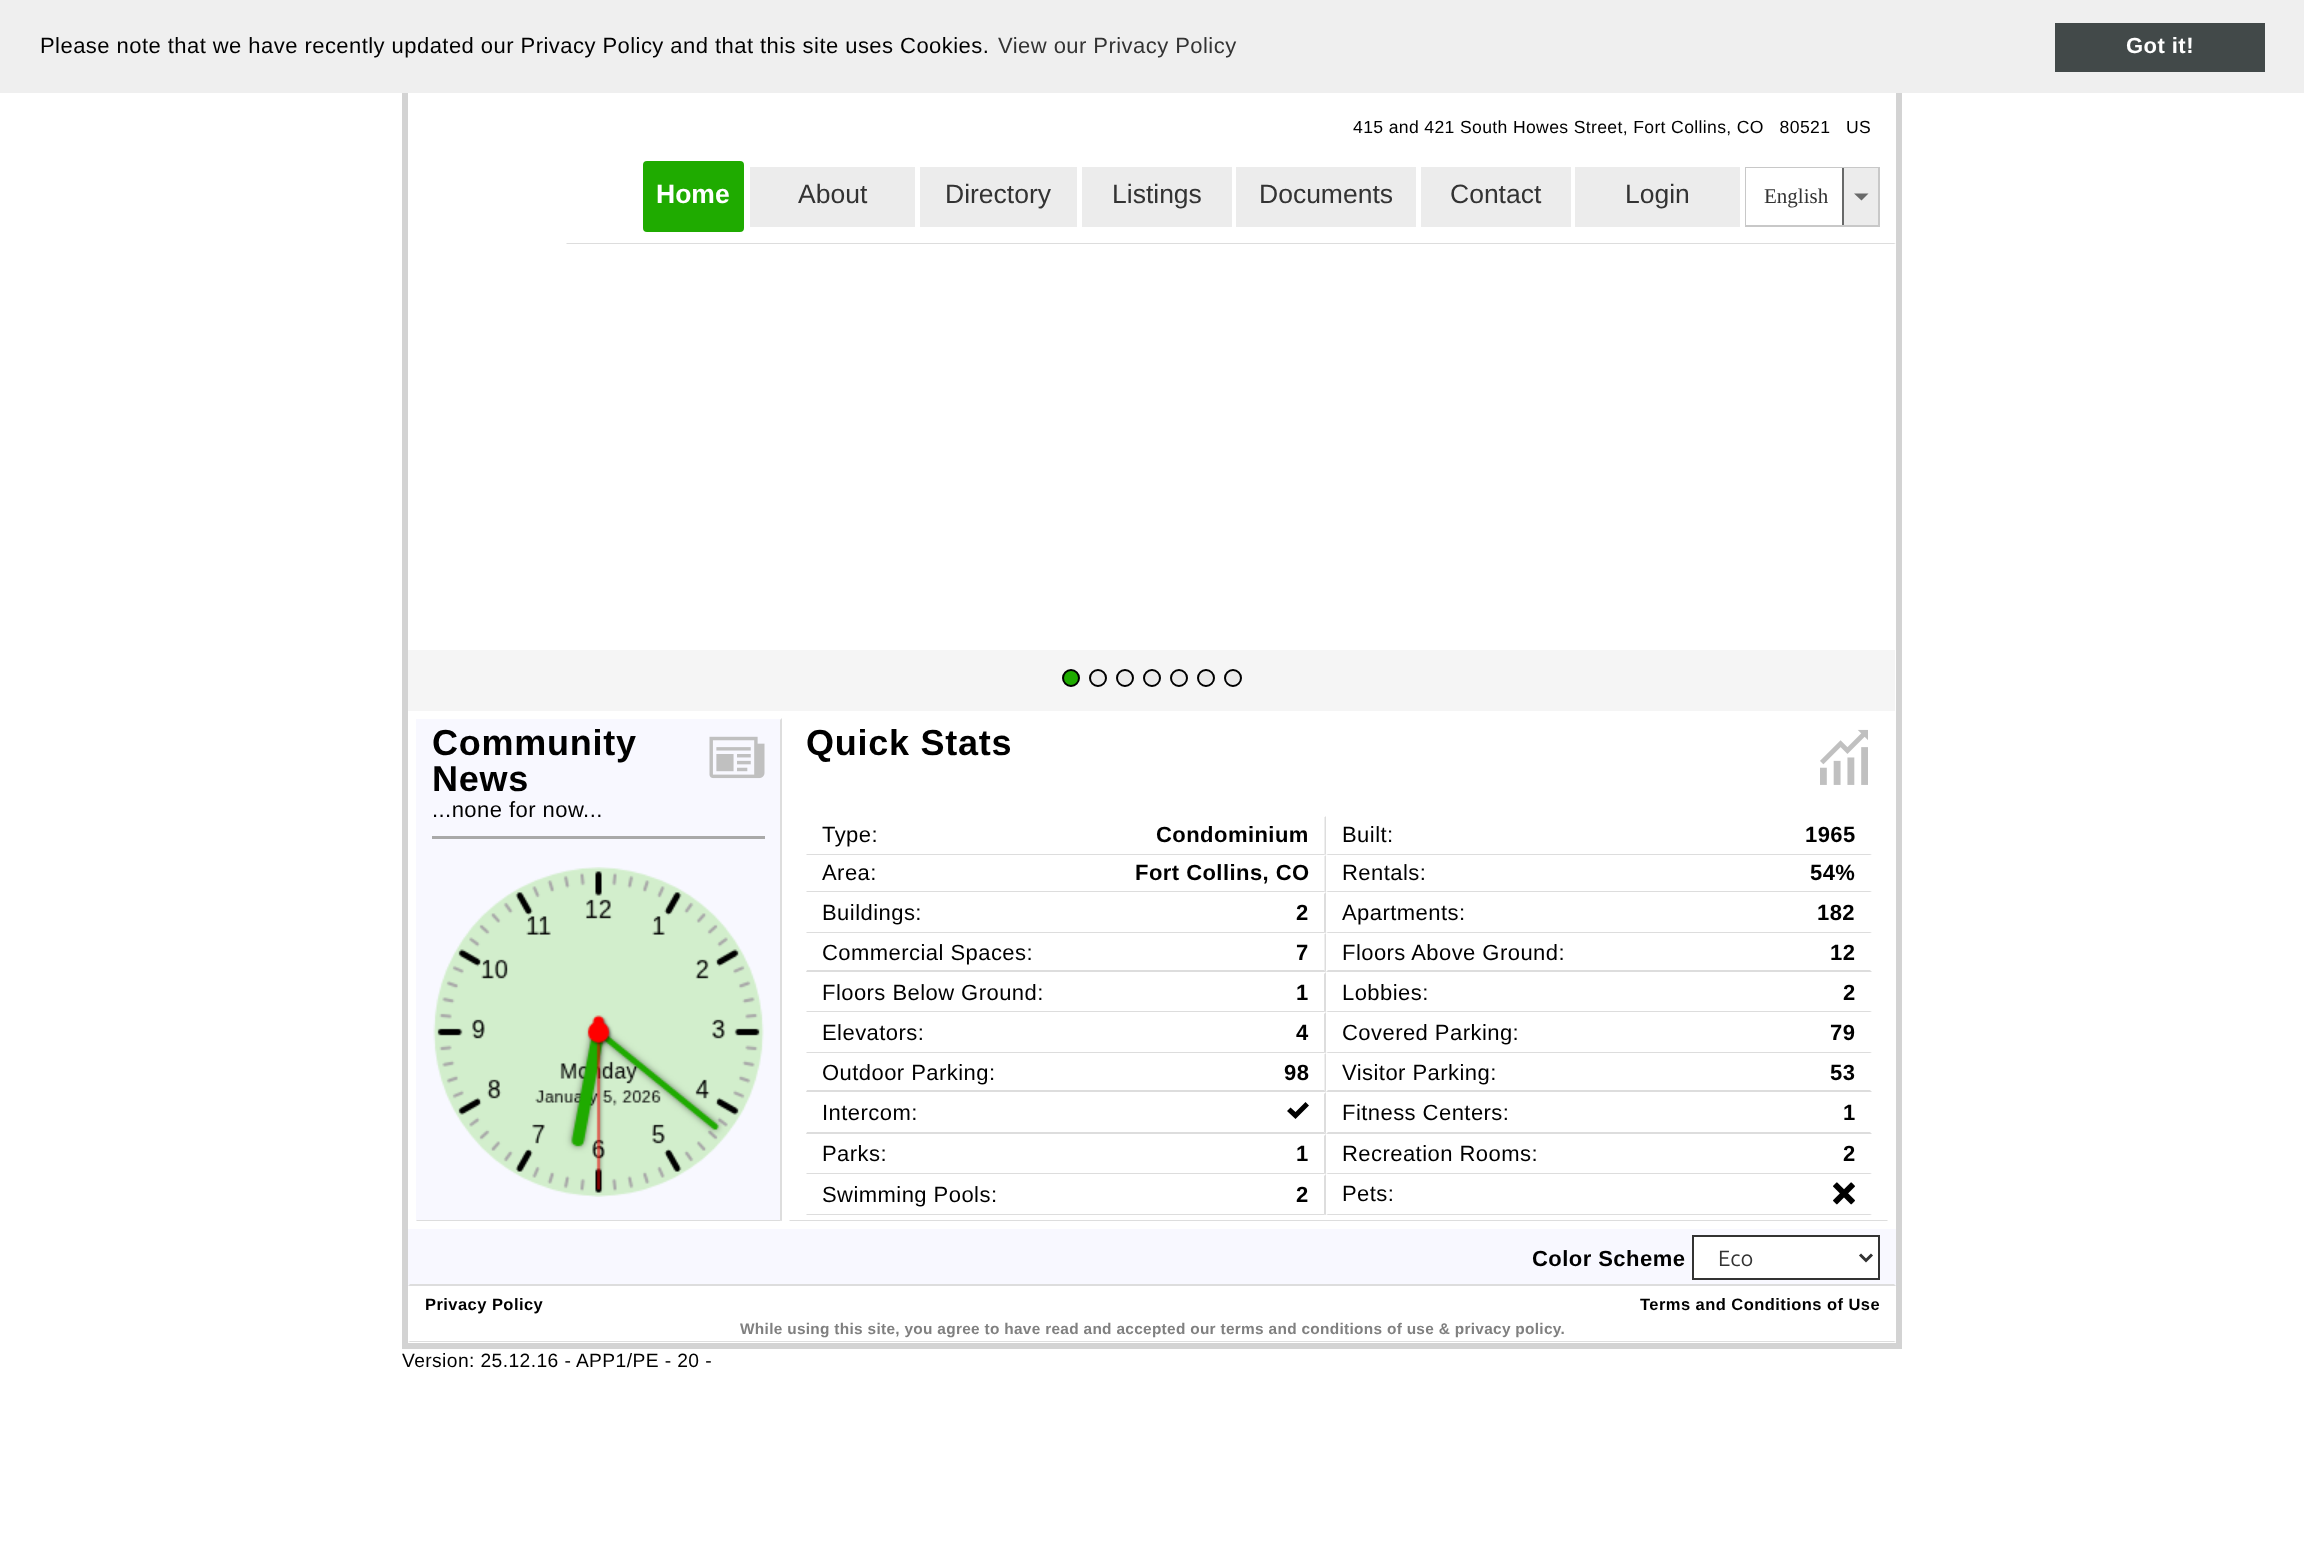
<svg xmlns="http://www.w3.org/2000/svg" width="2304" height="1552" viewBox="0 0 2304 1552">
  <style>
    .t1 { font: 22px Liberation Sans; letter-spacing: 0.45px; fill: #000; }
    .t2 { font: 22px Liberation Sans; letter-spacing: 0.45px; fill: #333; }
    .t3 { font: bold 22px Liberation Sans; letter-spacing: 0.45px; fill: #fff; }
    .t4 { font: 17.6px Liberation Sans; letter-spacing: 0.35px; fill: #000; }
    .t5 { font: bold 26.5px Liberation Sans; fill: #fff; }
    .t6 { font: 26.5px Liberation Sans; fill: #333; }
    .t7 { font: 21px Liberation Serif; fill: #333; }
    .t8 { font: bold 36px Liberation Sans; letter-spacing: 0.75px; fill: #000; }
    .t9 { font: bold 22px Liberation Sans; letter-spacing: 0.45px; fill: #000; }
    .t10 { font: 22px Ubuntu; fill: #333; }
    .t11 { font: bold 16.5px Liberation Sans; letter-spacing: 0.45px; fill: #000; }
    .t12 { font: bold 15.4px Liberation Sans; letter-spacing: 0.31px; fill: #808080; }
    .t13 { font: 19.25px Liberation Sans; letter-spacing: 0.4px; fill: #000; }
  </style>
  <rect width="100%" height="100%" fill="#fff"/>
  <rect x="405" y="30" width="1494" height="1316" fill="none" stroke="#d3d3d3" stroke-width="6"/>
  <rect x="0" y="0" width="2304" height="93" fill="#efefef"/>
  <text x="40" y="53" class="t1">Please note that we have recently updated our Privacy Policy and that this site uses Cookies.</text>
  <text x="998" y="53" class="t2">View our Privacy Policy</text>
  <rect x="2055" y="23" width="210" height="49" fill="#424949"/>
  <text x="2126" y="53" class="t3">Got it!</text>
  <path d="M1896 244H566L567 243H1894Z" fill="#ddd"/>
  <text x="1353" y="133" class="t4" xml:space="preserve">415 and 421 South Howes Street, Fort Collins, CO   80521   US</text>
  <rect x="642" y="160" width="103" height="73" rx="5" fill="#1fab00" stroke="#fff" stroke-width="2"/>
  <text x="656" y="203" class="t5">Home</text>
  <rect x="750" y="167" width="165" height="60" fill="#ececec"/>
  <text x="798" y="203" class="t6">About</text>
  <rect x="920" y="167" width="157" height="60" fill="#ececec"/>
  <text x="945" y="203" class="t6">Directory</text>
  <rect x="1082" y="167" width="150" height="60" fill="#ececec"/>
  <text x="1112" y="203" class="t6">Listings</text>
  <rect x="1236" y="167" width="180" height="60" fill="#ececec"/>
  <text x="1259" y="203" class="t6">Documents</text>
  <rect x="1421" y="167" width="150" height="60" fill="#ececec"/>
  <text x="1450" y="203" class="t6">Contact</text>
  <rect x="1575" y="167" width="165" height="60" fill="#ececec"/>
  <text x="1625" y="203" class="t6">Login</text>
  <rect x="1746" y="168" width="133" height="58" fill="none" stroke="#c8c8c8" stroke-width="2"/>
  <rect x="1746" y="168" width="96" height="57" fill="#fff"/>
  <text x="1764" y="203" class="t7">English</text>
  <rect x="1844" y="168" width="34" height="57" fill="#ececec"/>
  <rect x="1842" y="168" width="2" height="57" fill="#686969"/>
  <path d="M1861.5 200.5L1868.5 193.5H1854Z" fill="#686969"/>
  <rect x="408" y="650" width="1487" height="61" fill="#f5f5f5"/>
  <circle cx="1071" cy="678" r="8" fill="#1fab00" stroke="#000" stroke-width="2"/>
  <circle cx="1098" cy="678" r="8" fill="#ececec" stroke="#000" stroke-width="2"/>
  <circle cx="1125" cy="678" r="8" fill="#ececec" stroke="#000" stroke-width="2"/>
  <circle cx="1152" cy="678" r="8" fill="#ececec" stroke="#000" stroke-width="2"/>
  <circle cx="1179" cy="678" r="8" fill="#ececec" stroke="#000" stroke-width="2"/>
  <circle cx="1206" cy="678" r="8" fill="#ececec" stroke="#000" stroke-width="2"/>
  <circle cx="1233" cy="678" r="8" fill="#ececec" stroke="#000" stroke-width="2"/>
  <rect x="416" y="719" width="366" height="502" fill="#f8f8ff"/>
  <path d="M782 718V1221L780 1220V720Z" fill="#ddd"/>
  <path d="M782 1221H416L417 1220H780Z" fill="#ddd"/>
  <text x="432" y="755" class="t8">Community</text>
  <text x="432" y="791" class="t8">News</text>
  <image x="709" y="736" width="56" height="43" href="images/1.png"/>
  <rect x="432" y="836" width="333" height="3" fill="#a9a9a9"/>
  <text x="432" y="817" class="t1">...none for now...</text>
  <image x="433" y="867" width="331" height="330" href="images/2.png"/>
  <path d="M1888 1221H789L790 1220H1887Z" fill="#ddd"/>
  <text x="806" y="755" class="t8">Quick Stats</text>
  <image x="1820" y="729" width="48" height="56" href="images/3.png"/>
  <path d="M1326 816V855L1324.5 853.5V817.5Z" fill="#ddd"/>
  <path d="M1326 855H806L807 854H1324Z" fill="#ddd"/>
  <text x="822" y="842" class="t1">Type:</text>
  <text x="1156" y="842" class="t9">Condominium</text>
  <path d="M1872 855H1326L1328 854H1870Z" fill="#ddd"/>
  <text x="1342" y="842" class="t1">Built:</text>
  <text x="1805" y="842" class="t9">1965</text>
  <path d="M1326 855V892.5L1324.5 891V856.5Z" fill="#ddd"/>
  <path d="M1326 892H806L807 891H1324Z" fill="#ddd"/>
  <text x="822" y="880" class="t1">Area:</text>
  <text x="1135" y="880" class="t9">Fort Collins, CO</text>
  <path d="M1872 892H1326L1328 891H1870Z" fill="#ddd"/>
  <text x="1342" y="880" class="t1">Rentals:</text>
  <text x="1810" y="880" class="t9">54%</text>
  <path d="M1326 892V933L1324 932V894Z" fill="#ddd"/>
  <path d="M1326 933H806L807 932H1324Z" fill="#ddd"/>
  <text x="822" y="920" class="t1">Buildings:</text>
  <text x="1296" y="920" class="t9">2</text>
  <path d="M1872 933H1326L1328 932H1870Z" fill="#ddd"/>
  <text x="1342" y="920" class="t1">Apartments:</text>
  <text x="1817" y="920" class="t9">182</text>
  <path d="M1326 933V972L1324.5 970.5V934.5Z" fill="#ddd"/>
  <path d="M1326 972H806L807 970H1324Z" fill="#ddd"/>
  <text x="822" y="960" class="t1">Commercial Spaces:</text>
  <text x="1296" y="960" class="t9">7</text>
  <path d="M1872 972H1326L1328 970H1870Z" fill="#ddd"/>
  <text x="1342" y="960" class="t1">Floors Above Ground:</text>
  <text x="1830" y="960" class="t9">12</text>
  <path d="M1326 972V1012L1324 1011V974Z" fill="#ddd"/>
  <path d="M1326 1012H806L807 1011H1324Z" fill="#ddd"/>
  <text x="822" y="1000" class="t1">Floors Below Ground:</text>
  <text x="1296" y="1000" class="t9">1</text>
  <path d="M1872 1012H1326L1328 1011H1870Z" fill="#ddd"/>
  <text x="1342" y="1000" class="t1">Lobbies:</text>
  <text x="1843" y="1000" class="t9">2</text>
  <path d="M1326 1012V1053L1324 1052V1014Z" fill="#ddd"/>
  <path d="M1326 1053H806L807 1052H1324Z" fill="#ddd"/>
  <text x="822" y="1040" class="t1">Elevators:</text>
  <text x="1296" y="1040" class="t9">4</text>
  <path d="M1872 1053H1326L1328 1052H1870Z" fill="#ddd"/>
  <text x="1342" y="1040" class="t1">Covered Parking:</text>
  <text x="1830" y="1040" class="t9">79</text>
  <path d="M1326 1053V1092L1324.5 1090.5V1054.5Z" fill="#ddd"/>
  <path d="M1326 1092H806L807 1090H1324Z" fill="#ddd"/>
  <text x="822" y="1080" class="t1">Outdoor Parking:</text>
  <text x="1284" y="1080" class="t9">98</text>
  <path d="M1872 1092H1326L1328 1090H1870Z" fill="#ddd"/>
  <text x="1342" y="1080" class="t1">Visitor Parking:</text>
  <text x="1830" y="1080" class="t9">53</text>
  <path d="M1326 1092V1134L1324 1132V1094Z" fill="#ddd"/>
  <path d="M1326 1134H806L807 1132H1324Z" fill="#ddd"/>
  <text x="822" y="1120" class="t1">Intercom:</text>
  <path d="M1305.5 1102L1309 1105.5L1295.5 1119L1287 1111L1290.5 1107.5L1295.5 1112Z" fill="#000"/>
  <path d="M1872 1134H1326L1328 1132H1870Z" fill="#ddd"/>
  <text x="1342" y="1120" class="t1">Fitness Centers:</text>
  <text x="1843" y="1120" class="t9">1</text>
  <path d="M1326 1134V1174L1324 1173V1136Z" fill="#ddd"/>
  <path d="M1326 1174H806L807 1173H1324Z" fill="#ddd"/>
  <text x="822" y="1161" class="t1">Parks:</text>
  <text x="1296" y="1161" class="t9">1</text>
  <path d="M1872 1174H1326L1328 1173H1870Z" fill="#ddd"/>
  <text x="1342" y="1161" class="t1">Recreation Rooms:</text>
  <text x="1843" y="1161" class="t9">2</text>
  <path d="M1326 1174V1215L1324 1214V1176Z" fill="#ddd"/>
  <path d="M1326 1215H806L807 1214H1324Z" fill="#ddd"/>
  <text x="822" y="1202" class="t1">Swimming Pools:</text>
  <text x="1296" y="1202" class="t9">2</text>
  <path d="M1872 1215H1326L1328 1214H1870Z" fill="#ddd"/>
  <text x="1342" y="1201" class="t1">Pets:</text>
  <image x="1833" y="1182" width="22" height="23" href="images/4.png"/>
  <rect x="408" y="1229" width="1488" height="57" fill="#f8f8ff"/>
  <path d="M1896 1286H408L410 1284H1894Z" fill="#ddd"/>
  <text x="1532" y="1266" class="t9">Color Scheme</text>
  <rect x="1693" y="1236" width="186" height="43" fill="#fff" stroke="#333" stroke-width="2"/>
  <path d="M1860 1254.5L1866 1260.5L1872 1254.5" fill="none" stroke="#333" stroke-width="3"/>
  <text x="1718" y="1266" class="t10">Eco</text>
  <path d="M1896 1342H408L410 1341H1894Z" fill="#ddd"/>
  <text x="425" y="1310" class="t11">Privacy Policy</text>
  <text x="1640" y="1310" class="t11">Terms and Conditions of Use</text>
  <text x="740" y="1334" class="t12">While using this site, you agree to have read and accepted our terms and conditions of use &amp; privacy policy.</text>
  <text x="402" y="1367" class="t13">Version: 25.12.16 - APP1/PE - 20 -</text>
</svg>
